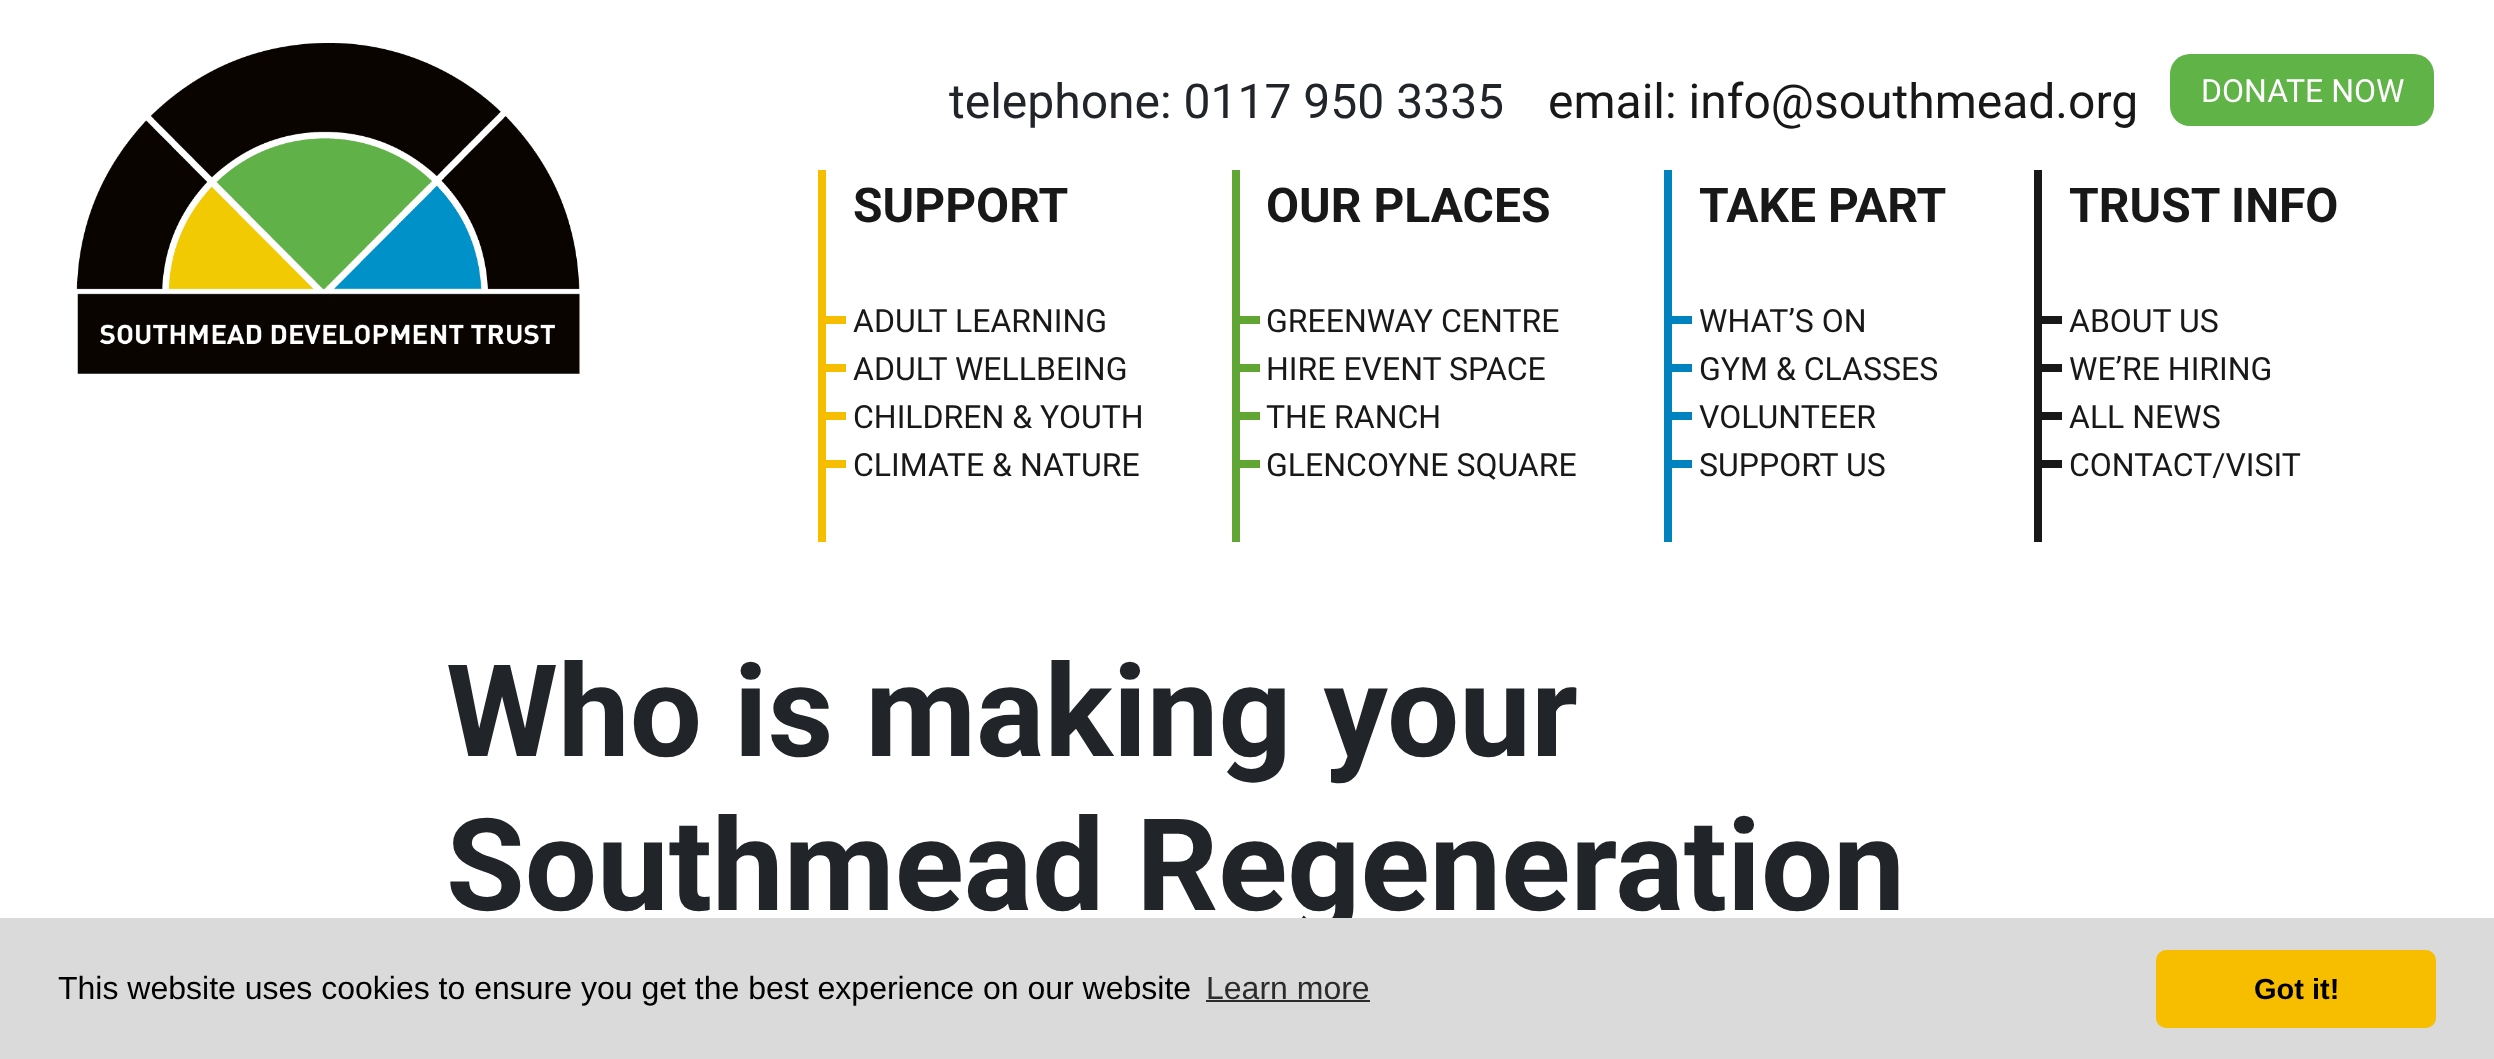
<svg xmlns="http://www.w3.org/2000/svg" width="2494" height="1059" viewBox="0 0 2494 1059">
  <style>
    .t1 { font: 48px Roboto; fill: #212529; }
    .t2 { font: 48px Roboto; fill: #191818; }
    .t3 { font: 32px Roboto; fill: #fff; }
    .t4 { font: bold 48px Roboto; fill: #191818; }
    .t5 { font: 32px Roboto; fill: #191818; }
    .t6 { font: bold 128px Roboto; fill: #212529; }
    .t7 { font: 32px Liberation Sans; fill: #000; }
    .t8 { font: 32px Liberation Sans; fill: #2c2c2c; }
    .t9 { font: bold 29px Liberation Sans; fill: #000; }
  </style>
  <rect width="100%" height="100%" fill="#fff"/>
  <image x="76" y="43" width="504" height="331" href="images/1.png"/>
  <text x="949" y="118" class="t1">telephone: 0117 950 3335</text>
  <text x="1548" y="118" class="t2">email: info@southmead.org</text>
  <rect x="2170" y="54" width="264" height="72" rx="20" fill="#60b347"/>
  <text x="2201" y="102" class="t3">DONATE NOW</text>
  <rect x="818" y="170" width="8" height="372" fill="#f7be00"/>
  <text x="853" y="222" class="t4">SUPPORT</text>
  <rect x="826" y="316" width="20" height="8" fill="#f7be00"/>
  <text x="853" y="332" class="t5">ADULT LEARNING</text>
  <rect x="826" y="364" width="20" height="8" fill="#f7be00"/>
  <text x="853" y="380" class="t5">ADULT WELLBEING</text>
  <rect x="826" y="412" width="20" height="8" fill="#f7be00"/>
  <text x="853" y="428" class="t5">CHILDREN &amp; YOUTH</text>
  <rect x="826" y="460" width="20" height="8" fill="#f7be00"/>
  <text x="853" y="476" class="t5">CLIMATE &amp; NATURE</text>
  <rect x="1232" y="170" width="8" height="372" fill="#60a635"/>
  <text x="1266" y="222" class="t4">OUR PLACES</text>
  <rect x="1240" y="316" width="20" height="8" fill="#60a635"/>
  <text x="1266" y="332" class="t5">GREENWAY CENTRE</text>
  <rect x="1240" y="364" width="20" height="8" fill="#60a635"/>
  <text x="1266" y="380" class="t5">HIRE EVENT SPACE</text>
  <rect x="1240" y="412" width="20" height="8" fill="#60a635"/>
  <text x="1266" y="428" class="t5">THE RANCH</text>
  <rect x="1240" y="460" width="20" height="8" fill="#60a635"/>
  <text x="1266" y="476" class="t5">GLENCOYNE SQUARE</text>
  <rect x="1664" y="170" width="8" height="372" fill="#0082bf"/>
  <text x="1699" y="222" class="t4">TAKE PART</text>
  <rect x="1672" y="316" width="20" height="8" fill="#0082bf"/>
  <text x="1699" y="332" class="t5">WHAT’S ON</text>
  <rect x="1672" y="364" width="20" height="8" fill="#0082bf"/>
  <text x="1699" y="380" class="t5">GYM &amp; CLASSES</text>
  <rect x="1672" y="412" width="20" height="8" fill="#0082bf"/>
  <text x="1699" y="428" class="t5">VOLUNTEER</text>
  <rect x="1672" y="460" width="20" height="8" fill="#0082bf"/>
  <text x="1699" y="476" class="t5">SUPPORT US</text>
  <rect x="2034" y="170" width="8" height="372" fill="#191818"/>
  <text x="2069" y="222" class="t4">TRUST INFO</text>
  <rect x="2042" y="316" width="20" height="8" fill="#191818"/>
  <text x="2069" y="332" class="t5">ABOUT US</text>
  <rect x="2042" y="364" width="20" height="8" fill="#191818"/>
  <text x="2069" y="380" class="t5">WE’RE HIRING</text>
  <rect x="2042" y="412" width="20" height="8" fill="#191818"/>
  <text x="2069" y="428" class="t5">ALL NEWS</text>
  <rect x="2042" y="460" width="20" height="8" fill="#191818"/>
  <text x="2069" y="476" class="t5">CONTACT/VISIT</text>
  <text x="446" y="756" class="t6">Who is making your</text>
  <text x="446" y="910" class="t6">Southmead Regeneration</text>
  <rect x="0" y="918" width="2494" height="141" fill="#dadada"/>
  <text x="58" y="999" class="t7">This website uses cookies to ensure you get the best experience on our website</text>
  <text x="1206" y="999" class="t8">Learn more</text>
  <rect x="1206" y="1000" width="164" height="2" fill="#2c2c2c"/>
  <rect x="2156" y="950" width="280" height="78" rx="10" fill="#f7be00"/>
  <text x="2254" y="999" class="t9">Got it!</text>
</svg>
